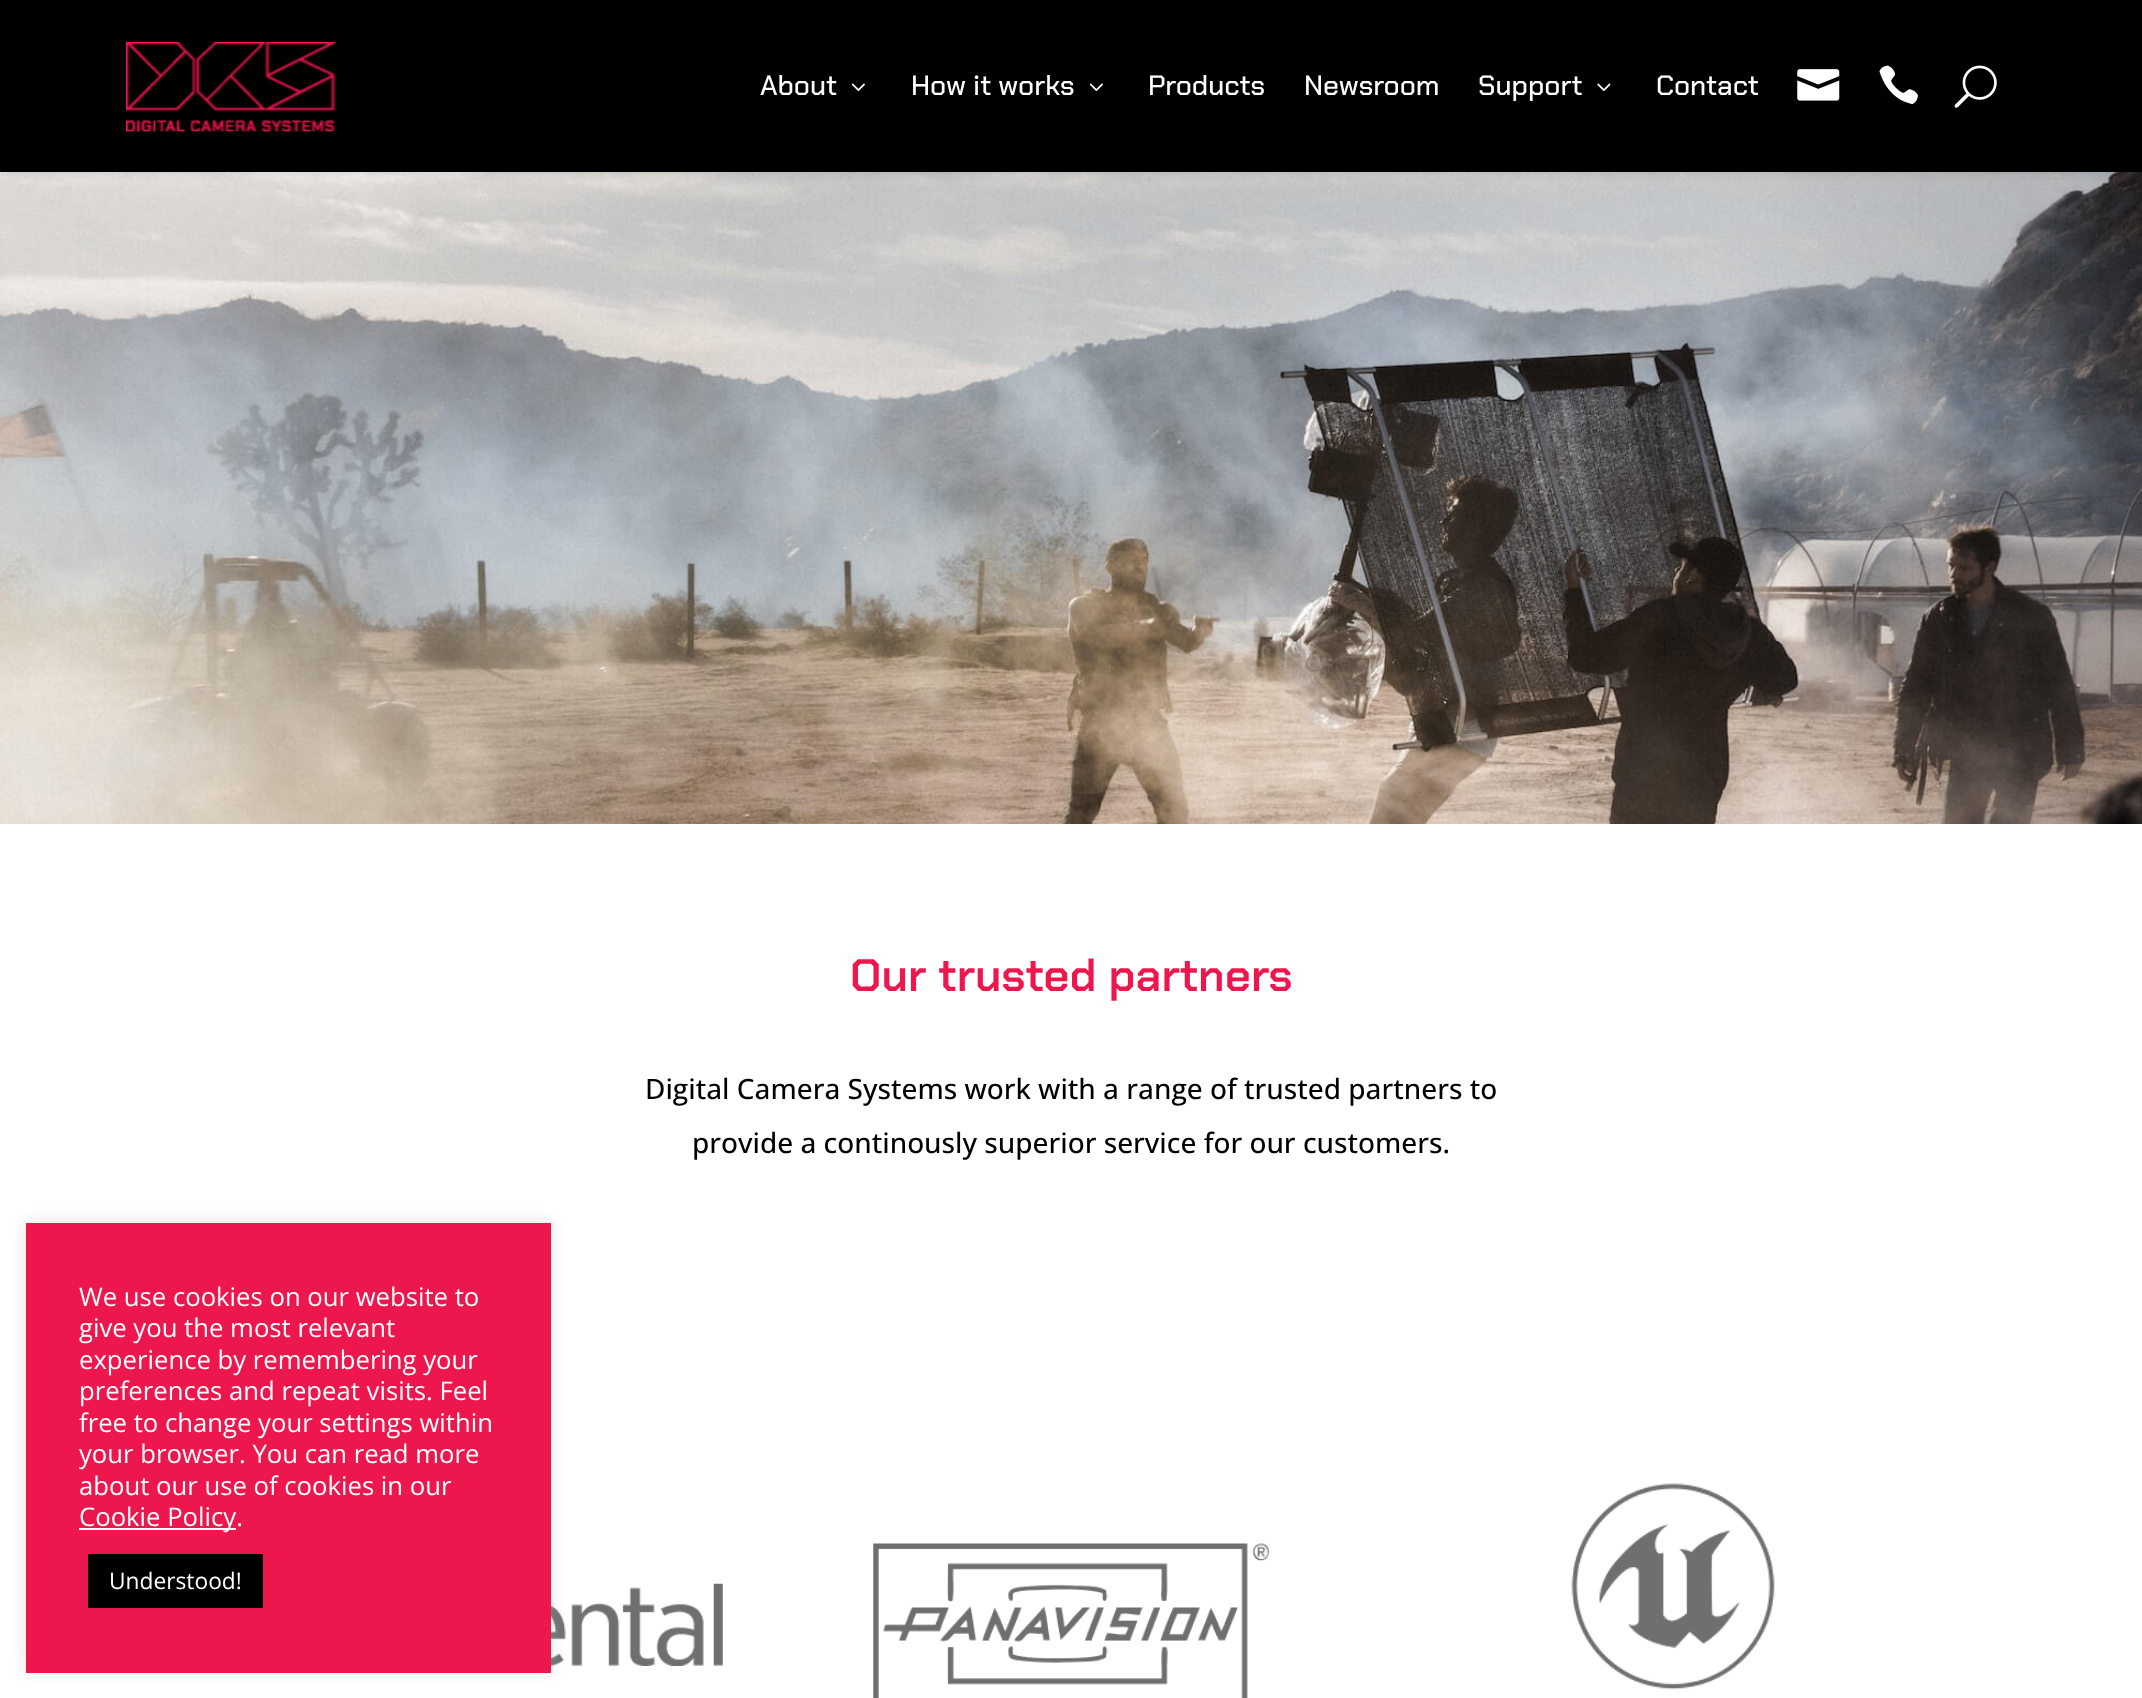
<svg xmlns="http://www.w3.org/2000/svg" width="2142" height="1698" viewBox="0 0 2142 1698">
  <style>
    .t1 { font: 500 28px Chakra Petch; fill: #fff; }
    .t2 { font: 600 45.5px Chakra Petch; fill: #ed174e; }
    .t3 { font: 500 28px Open Sans; fill: #000; }
    .t4 { font: 25.7px Open Sans; fill: #fff; }
    .t5 { font: 22.75px Open Sans; fill: #fff; }
  </style>
  <rect width="100%" height="100%" fill="#fff"/>
  <image x="0" y="172" width="2142" height="652" href="images/7.png"/>
  <rect x="4" y="5" width="2135" height="165" fill="#0000002b" filter="blur(6px)"/>
  <rect x="0" y="0" width="2142" height="172" fill="#000"/>
  <image x="126" y="42" width="210" height="90" href="images/1.png"/>
  <text x="760" y="95" class="t1">About</text>
  <image x="851" y="83" width="14" height="8" href="images/2.png"/>
  <text x="911" y="95" class="t1">How it works</text>
  <image x="1089" y="83" width="14" height="8" href="images/2.png"/>
  <text x="1148" y="95" class="t1">Products</text>
  <text x="1304" y="95" class="t1">Newsroom</text>
  <text x="1478" y="95" class="t1">Support</text>
  <image x="1597" y="83" width="14" height="8" href="images/3.png"/>
  <text x="1656" y="95" class="t1">Contact</text>
  <image x="1797" y="69" width="43" height="32" href="images/4.png"/>
  <image x="1879" y="65" width="39" height="40" href="images/5.png"/>
  <image x="1954" y="65" width="43" height="43" href="images/6.png"/>
  <text x="850" y="991" class="t2">Our trusted partners</text>
  <text x="645" y="1099" class="t3">Digital Camera Systems work with a range of trusted partners to</text>
  <text x="692" y="1153" class="t3">provide a continously superior service for our customers.</text>
  <image x="551" y="1583" width="172" height="83" href="images/8.png"/>
  <image x="873" y="1543" width="396" height="155" href="images/9.png"/>
  <image x="1571" y="1483" width="204" height="207" href="images/10.png"/>
  <rect x="26" y="1222" width="525" height="449" fill="#acabab4d" filter="blur(9px)"/>
  <rect x="26" y="1223" width="525" height="450" fill="#ed174e"/>
  <text x="79" y="1306" class="t4">We use cookies on our website to</text>
  <text x="79" y="1337" class="t4">give you the most relevant</text>
  <text x="79" y="1369" class="t4">experience by remembering your</text>
  <text x="79" y="1400" class="t4">preferences and repeat visits. Feel</text>
  <text x="79" y="1432" class="t4">free to change your settings within</text>
  <text x="79" y="1463" class="t4">your browser. You can read more</text>
  <text x="79" y="1495" class="t4">about our use of cookies in our</text>
  <rect x="79" y="1528" width="157" height="2" fill="#fff"/>
  <text x="79" y="1526" class="t4">Cookie Policy.</text>
  <rect x="88" y="1554" width="175" height="54" fill="#000"/>
  <text x="109" y="1589" class="t5">Understood!</text>
</svg>
